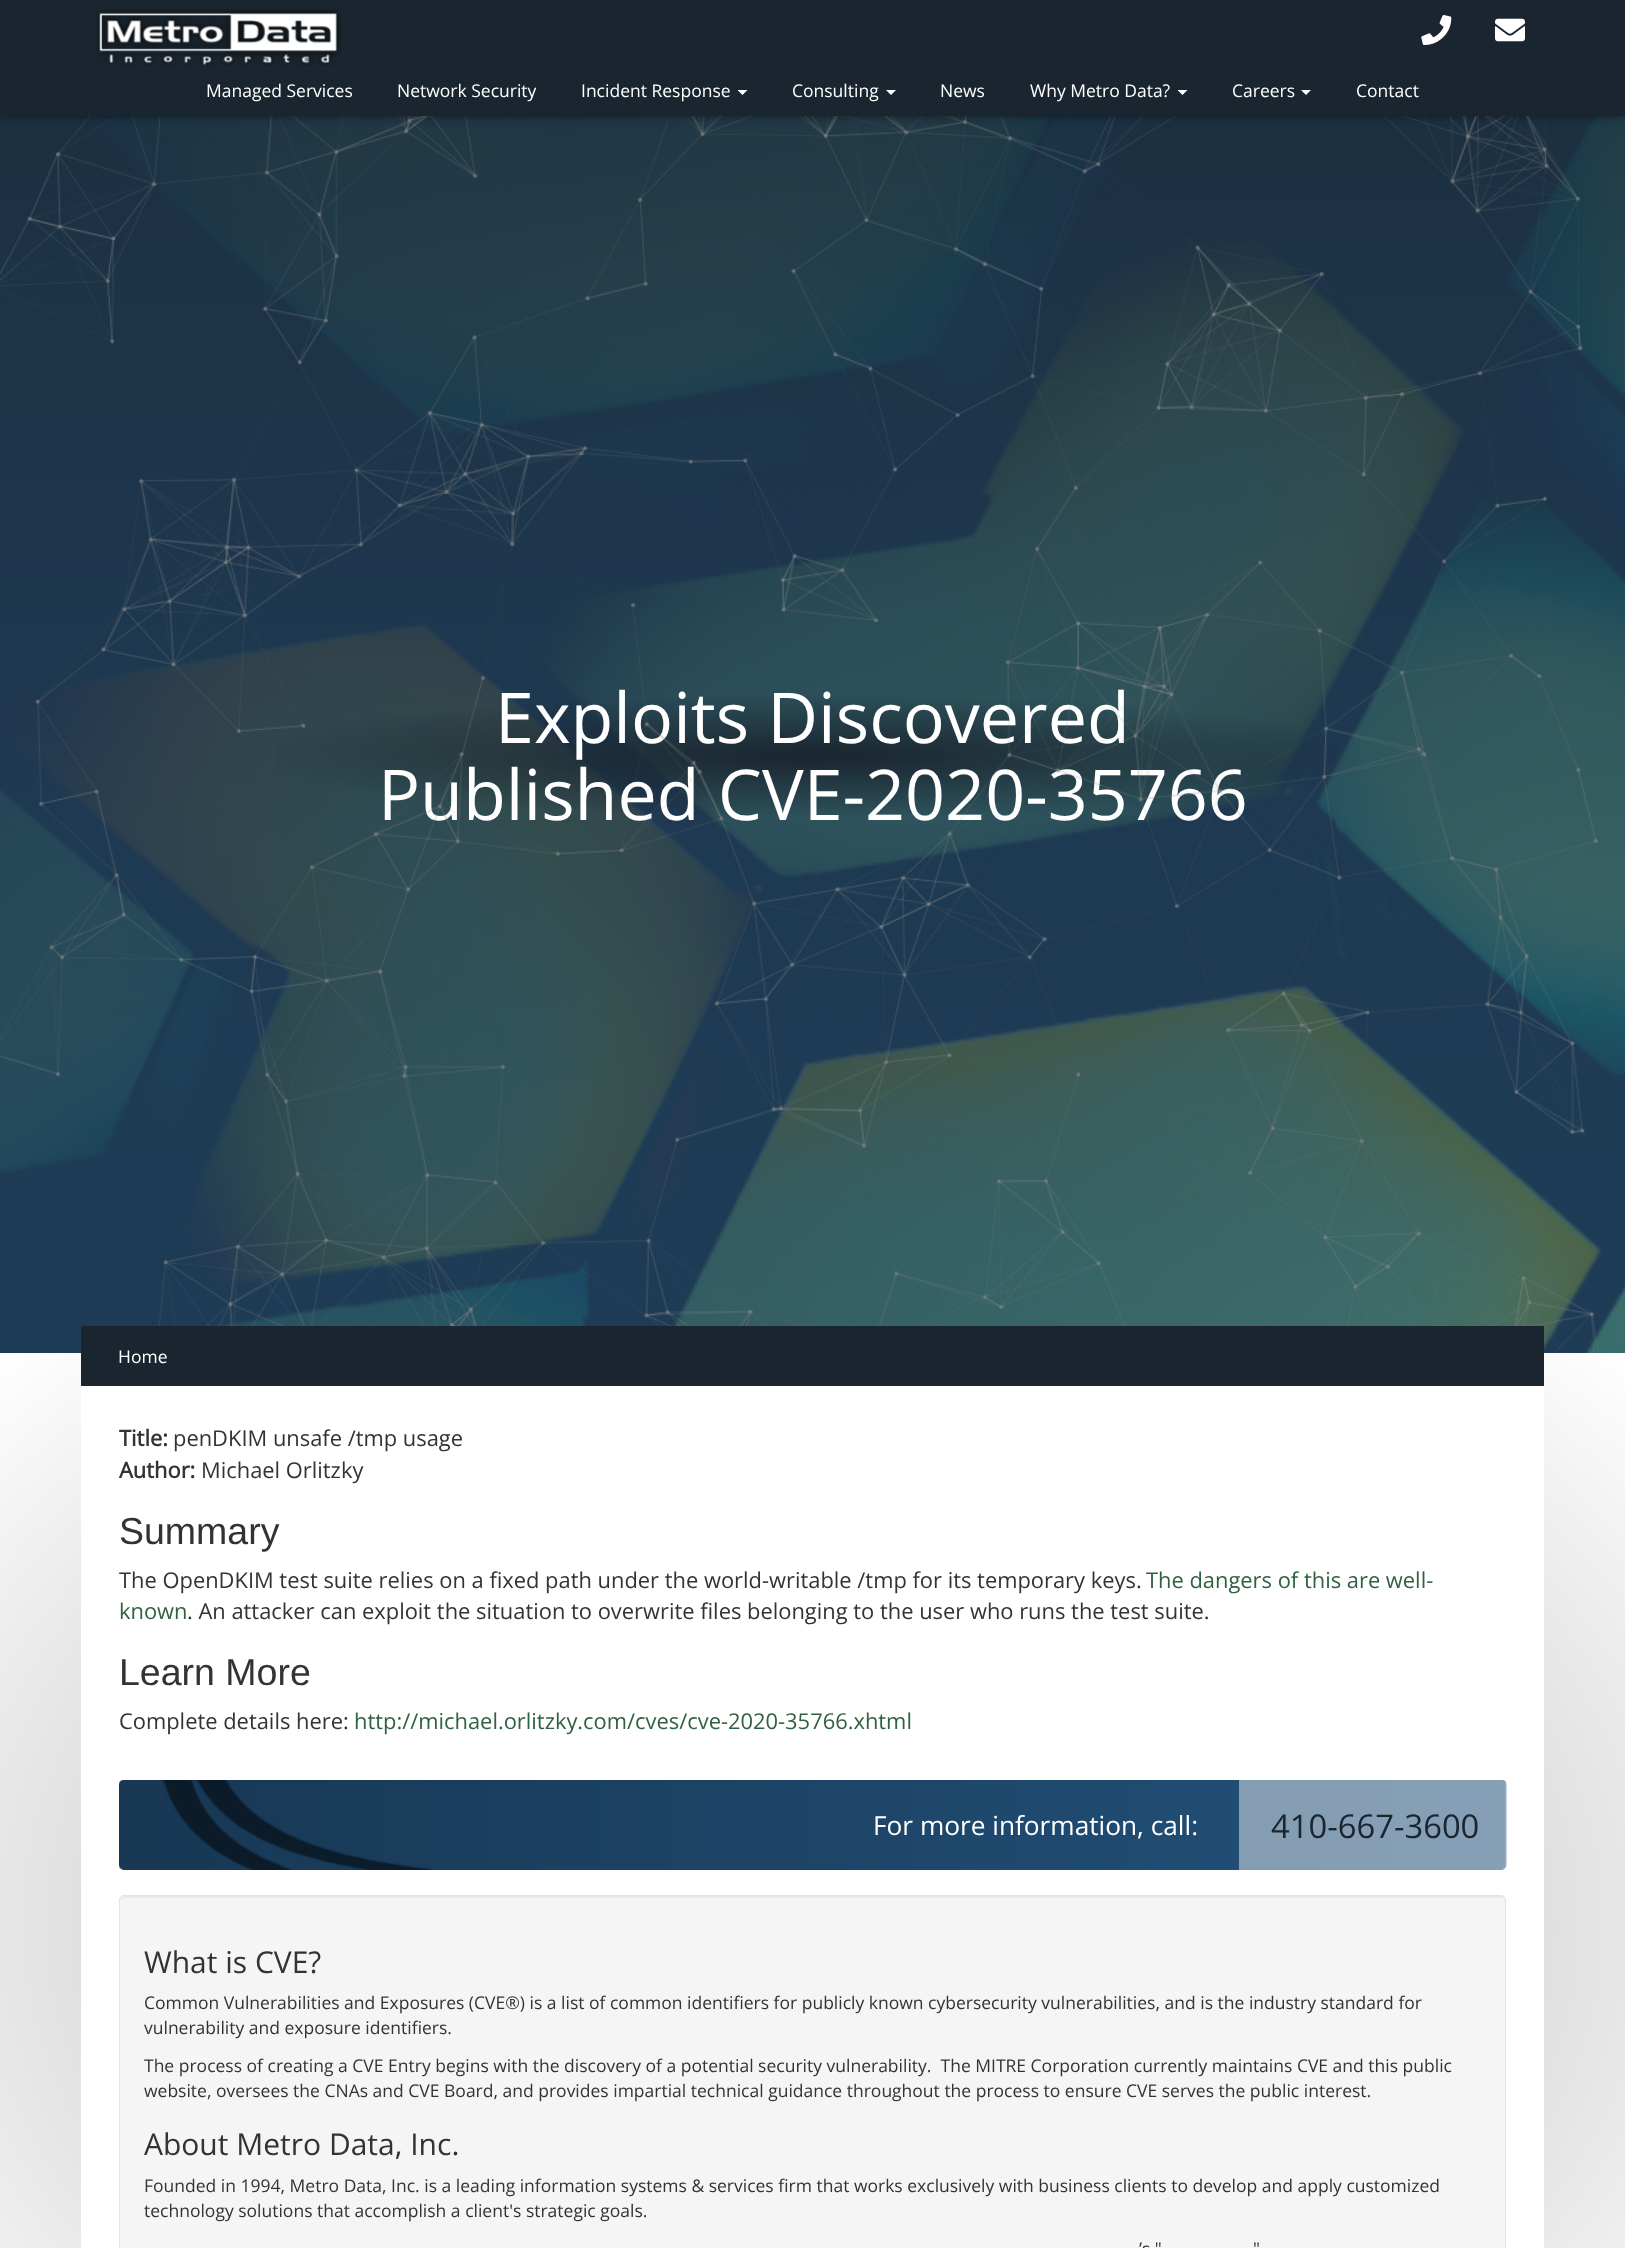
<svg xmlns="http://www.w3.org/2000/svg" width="1625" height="2248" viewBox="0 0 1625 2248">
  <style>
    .t1 { font: 70px Open Sans; fill: #fff; }
    .t2 { font: 17.5px Open Sans; fill: #fff; }
    .t3 { font: bold 21.9px Open Sans; fill: #333; }
    .t4 { font: 21.9px Open Sans; fill: #333; }
    .t5 { font: 37.5px Liberation Sans; fill: #333; }
    .t6 { font: 21.9px Open Sans; fill: #306140; }
    .t7 { font: 26.25px Open Sans; fill: #fff; }
    .t8 { font: 32.75px Open Sans; fill: #1a252f; }
    .t9 { font: 30px Open Sans; fill: #333; }
    .t10 { font: 17.5px Open Sans; fill: #333; }
  </style>
  <defs>
    <linearGradient id="g1" gradientUnits="userSpaceOnUse" x1="812" y1="-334" x2="813" y2="1353"><stop offset="0" stop-color="#1a252f"/><stop offset="1" stop-color="#23527c" stop-opacity="0.5"/></linearGradient>
    <radialGradient id="g2" gradientUnits="userSpaceOnUse" cx="0" cy="0" r="1" gradientTransform="matrix(1008 0 0 109 813 756)"><stop offset="0" stop-color="#1a252f"/><stop offset="0.57" stop-color="#1a252f" stop-opacity="0"/></radialGradient>
    <radialGradient id="g3" gradientUnits="userSpaceOnUse" cx="0" cy="0" r="1" gradientTransform="matrix(1149 0 0 807 813 1923)"><stop offset="0" stop-color="#aaa"/><stop offset="1" stop-color="#fff"/></radialGradient>
  </defs>
  <rect width="100%" height="100%" fill="#1a252f"/>
  <image x="0" y="116" width="1625" height="1237" href="images/4.png"/>
  <rect x="0" y="116" width="1625" height="1237" fill="url(#g1)"/>
  <rect x="275" y="697" width="1085" height="118" fill="url(#g2)"/>
  <text x="495" y="743" class="t1">Exploits Discovered</text>
  <text x="378" y="820" class="t1">Published CVE-2020-35766</text>
  <image x="0" y="116" width="1599" height="1237" href="images/5.png"/>
  <rect x="0" y="0" width="1625" height="116" fill="#00000080" filter="blur(5px)"/>
  <rect x="0" y="0" width="1625" height="116" fill="#1a252f"/>
  <image x="96" y="9" width="245" height="57" href="images/1.png"/>
  <image x="1421" y="15" width="31" height="30" href="images/2.png"/>
  <image x="1495" y="18" width="30" height="24" href="images/3.png"/>
  <text x="206" y="97" class="t2">Managed Services</text>
  <text x="397" y="97" class="t2">Network Security</text>
  <text x="581" y="97" class="t2">Incident Response</text>
  <path d="M737.5 90H747.5L742.5 95Z" fill="#fff"/>
  <text x="792" y="97" class="t2">Consulting</text>
  <path d="M886 90H896L891 95Z" fill="#fff"/>
  <text x="940" y="97" class="t2">News</text>
  <text x="1030" y="97" class="t2">Why Metro Data?</text>
  <path d="M1177.5 90H1187.5L1182.5 95Z" fill="#fff"/>
  <text x="1232" y="97" class="t2">Careers</text>
  <path d="M1301 90H1311L1306 95Z" fill="#fff"/>
  <text x="1356" y="97" class="t2">Contact</text>
  <rect x="0" y="1353" width="1625" height="895" fill="url(#g3)"/>
  <rect x="81" y="1326" width="1463" height="60" fill="#1a252f"/>
  <text x="118" y="1363" class="t2">Home</text>
  <rect x="81" y="1386" width="1463" height="862" fill="#fff"/>
  <text x="119" y="1446" class="t3">Title:</text>
  <text x="173" y="1446" class="t4">penDKIM unsafe /tmp usage</text>
  <text x="119" y="1478" class="t3">Author:</text>
  <text x="201" y="1478" class="t4">Michael Orlitzky</text>
  <text x="119" y="1544" class="t5">Summary</text>
  <text x="119" y="1588" class="t4">The OpenDKIM test suite relies on a fixed path under the world-writable /tmp for its temporary keys.</text>
  <text x="1146" y="1588" class="t6">The dangers of this are well-</text>
  <text x="119" y="1619" class="t6">known</text>
  <text x="187" y="1619" class="t4">. An attacker can exploit the situation to overwrite files belonging to the user who runs the test suite.</text>
  <text x="119" y="1685" class="t5">Learn More</text>
  <text x="119" y="1729" class="t4">Complete details here:</text>
  <text x="354" y="1729" class="t6">http://michael.orlitzky.com/cves/cve-2020-35766.xhtml</text>
  <image x="119" y="1780" width="1388" height="90" href="images/6.png"/>
  <path d="M124 1781H1501C1504 1781 1506 1783 1506 1786C1506 1783 1504 1780 1501 1780H124C121 1780 119 1783 119 1786C119 1783 121 1781 124 1781Z" fill="#0000000d"/>
  <text x="873" y="1835" class="t7">For more information, call:</text>
  <path d="M1239 1780H1501C1504 1780 1506 1782 1506 1785V1865C1506 1868 1504 1870 1501 1870H1239Z" fill="#ffffff73"/>
  <text x="1271" y="1838" class="t8">410-667-3600</text>
  <rect x="119" y="1895" width="1387" height="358" rx="5" fill="#f5f5f5"/>
  <path d="M124 1898H1501C1503 1898 1505 1899 1505 1901V1900C1505 1898 1503 1896 1501 1896H124C122 1896 120 1898 120 1900V1901C120 1899 122 1898 124 1898Z" fill="#e9e9e9"/>
  <rect x="119.5" y="1895.5" width="1386" height="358" rx="4.5" fill="none" stroke="#e3e3e3"/>
  <text x="144" y="1973" class="t9">What is CVE?</text>
  <text x="144" y="2009" class="t10">Common Vulnerabilities and Exposures (CVE®) is a list of common identifiers for publicly known cybersecurity vulnerabilities, and is the industry standard for</text>
  <text x="144" y="2034" class="t10">vulnerability and exposure identifiers.</text>
  <text x="144" y="2072" class="t10" xml:space="preserve">The process of creating a CVE Entry begins with the discovery of a potential security vulnerability.  The MITRE Corporation currently maintains CVE and this public</text>
  <text x="144" y="2097" class="t10">website, oversees the CNAs and CVE Board, and provides impartial technical guidance throughout the process to ensure CVE serves the public interest.</text>
  <text x="144" y="2155" class="t9">About Metro Data, Inc.</text>
  <text x="144" y="2192" class="t10">Founded in 1994, Metro Data, Inc. is a leading information systems &amp; services firm that works exclusively with business clients to develop and apply customized</text>
  <text x="144" y="2217" class="t10">technology solutions that accomplish a client's strategic goals.</text>
  <text x="1139" y="2255" class="t10">’s "</text>
  <text x="1253" y="2255" class="t10">"</text>
</svg>
